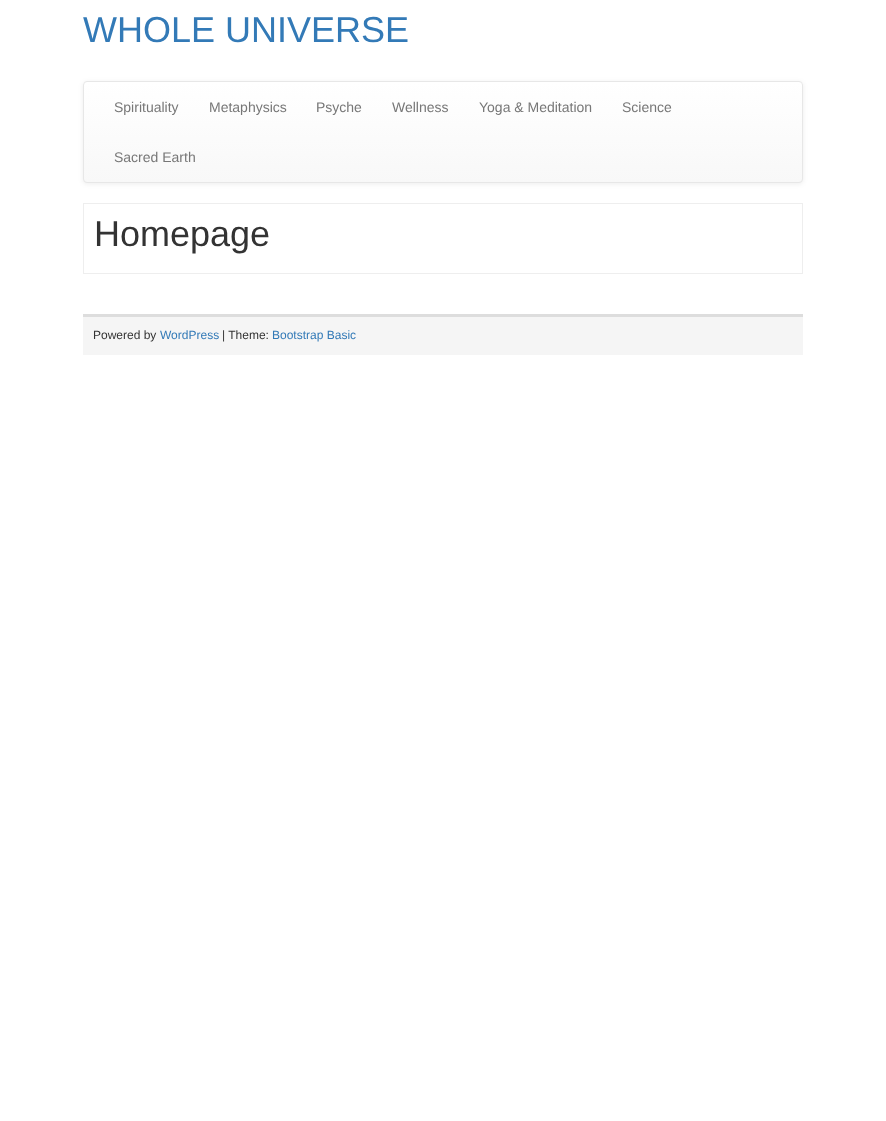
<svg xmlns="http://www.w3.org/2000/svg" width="886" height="1121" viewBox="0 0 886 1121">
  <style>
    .t1 { font: 36px Liberation Sans; fill: #337ab7; }
    .t2 { font: 14px Liberation Sans; fill: #777; }
    .t3 { font: 36px Liberation Sans; fill: #333; }
    .t4 { font: 12px Liberation Sans; fill: #333; }
    .t5 { font: 12px Liberation Sans; fill: #337ab7; }
  </style>
  <defs>
    <clipPath id="clip1"><rect x="83" y="81" width="720" height="102" rx="4"/></clipPath>
    <linearGradient id="g1" gradientUnits="userSpaceOnUse" x1="443" y1="82" x2="443" y2="182"><stop offset="0" stop-color="#fff"/><stop offset="1" stop-color="#f8f8f8"/></linearGradient>
  </defs>
  <rect width="100%" height="100%" fill="#fff"/>
  <text x="83" y="42" class="t1">WHOLE UNIVERSE</text>
  <rect x="83" y="82" width="720" height="102" rx="4" fill="#00000012" filter="blur(2.5px)"/>
  <g clip-path="url(#clip1)">
    <rect x="83" y="82" width="720" height="100" fill="url(#g1)"/>
  </g>
  <rect x="83.5" y="81.5" width="719" height="101" rx="3.5" fill="none" stroke="#e7e7e7"/>
  <text x="114" y="112" class="t2">Spirituality</text>
  <text x="209" y="112" class="t2">Metaphysics</text>
  <text x="316" y="112" class="t2">Psyche</text>
  <text x="392" y="112" class="t2">Wellness</text>
  <text x="479" y="112" class="t2">Yoga &amp; Meditation</text>
  <text x="622" y="112" class="t2">Science</text>
  <text x="114" y="162" class="t2">Sacred Earth</text>
  <rect x="83.5" y="203.5" width="719" height="70" fill="none" stroke="#eee"/>
  <text x="94" y="246" class="t3">Homepage</text>
  <rect x="83" y="317" width="720" height="38" fill="#f5f5f5"/>
  <rect x="83" y="314" width="720" height="3" fill="#ddd"/>
  <text x="93" y="339" class="t4">Powered by</text>
  <text x="160" y="339" class="t5">WordPress</text>
  <text x="222" y="339" class="t4">| Theme:</text>
  <text x="272" y="339" class="t5">Bootstrap Basic</text>
</svg>
